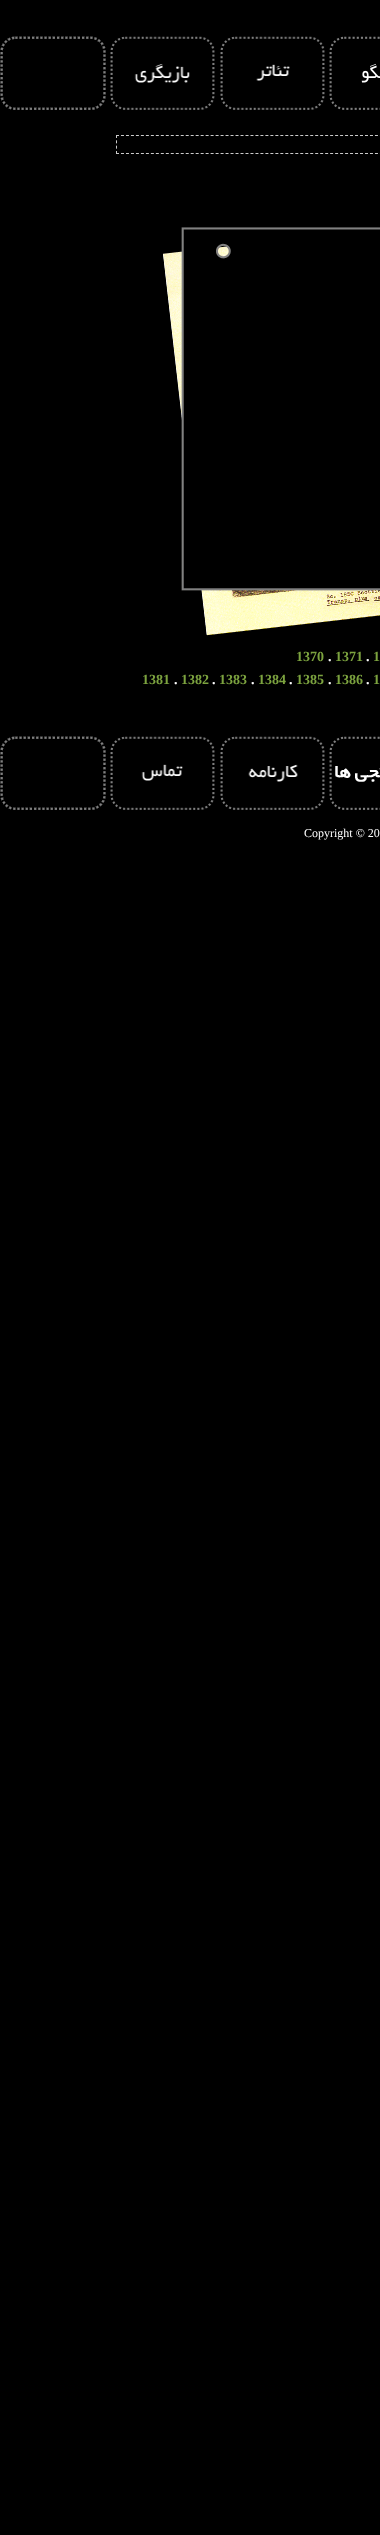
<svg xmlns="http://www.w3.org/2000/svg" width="380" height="2535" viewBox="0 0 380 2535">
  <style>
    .t1 { font: bold 14px Liberation Serif; fill: #7ca33f; }
    .t2 { font: bold 14px Liberation Serif; fill: #fff; }
    .t3 { font: 12px Liberation Serif; fill: #fff; }
  </style>
  <rect width="100%" height="100%" fill="#000"/>
  <image x="162" y="185" width="218" height="451" href="images/1.png"/>
  <image x="0" y="36" width="106" height="74" href="images/2.png"/>
  <image x="110" y="36" width="105" height="74" href="images/3.png"/>
  <image x="220" y="36" width="105" height="74" href="images/4.png"/>
  <image x="329" y="36" width="51" height="74" href="images/5.png"/>
  <path d="M116 135.5H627" fill="none" stroke="#ccc" stroke-dasharray="3 1.98"/>
  <path d="M116 153.5H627" fill="none" stroke="#ccc" stroke-dasharray="3 1.98"/>
  <path d="M116.5 135V154" fill="none" stroke="#ccc" stroke-dasharray="3 2.33"/>
  <text x="296" y="661" class="t1">1370</text>
  <text x="328" y="661" class="t2">.</text>
  <text x="335" y="661" class="t1">1371</text>
  <text x="366" y="661" class="t2">.</text>
  <text x="373" y="661" class="t1">1</text>
  <text x="142" y="684" class="t1">1381</text>
  <text x="174" y="684" class="t2">.</text>
  <text x="181" y="684" class="t1">1382</text>
  <text x="212" y="684" class="t2">.</text>
  <text x="219" y="684" class="t1">1383</text>
  <text x="251" y="684" class="t2">.</text>
  <text x="258" y="684" class="t1">1384</text>
  <text x="289" y="684" class="t2">.</text>
  <text x="296" y="684" class="t1">1385</text>
  <text x="328" y="684" class="t2">.</text>
  <text x="335" y="684" class="t1">1386</text>
  <text x="366" y="684" class="t2">.</text>
  <text x="373" y="684" class="t1">1</text>
  <image x="0" y="736" width="106" height="74" href="images/2.png"/>
  <image x="110" y="736" width="105" height="74" href="images/6.png"/>
  <image x="220" y="736" width="105" height="74" href="images/7.png"/>
  <image x="329" y="736" width="51" height="74" href="images/8.png"/>
  <text x="304" y="837" class="t3">Copyright © 20</text>
</svg>
